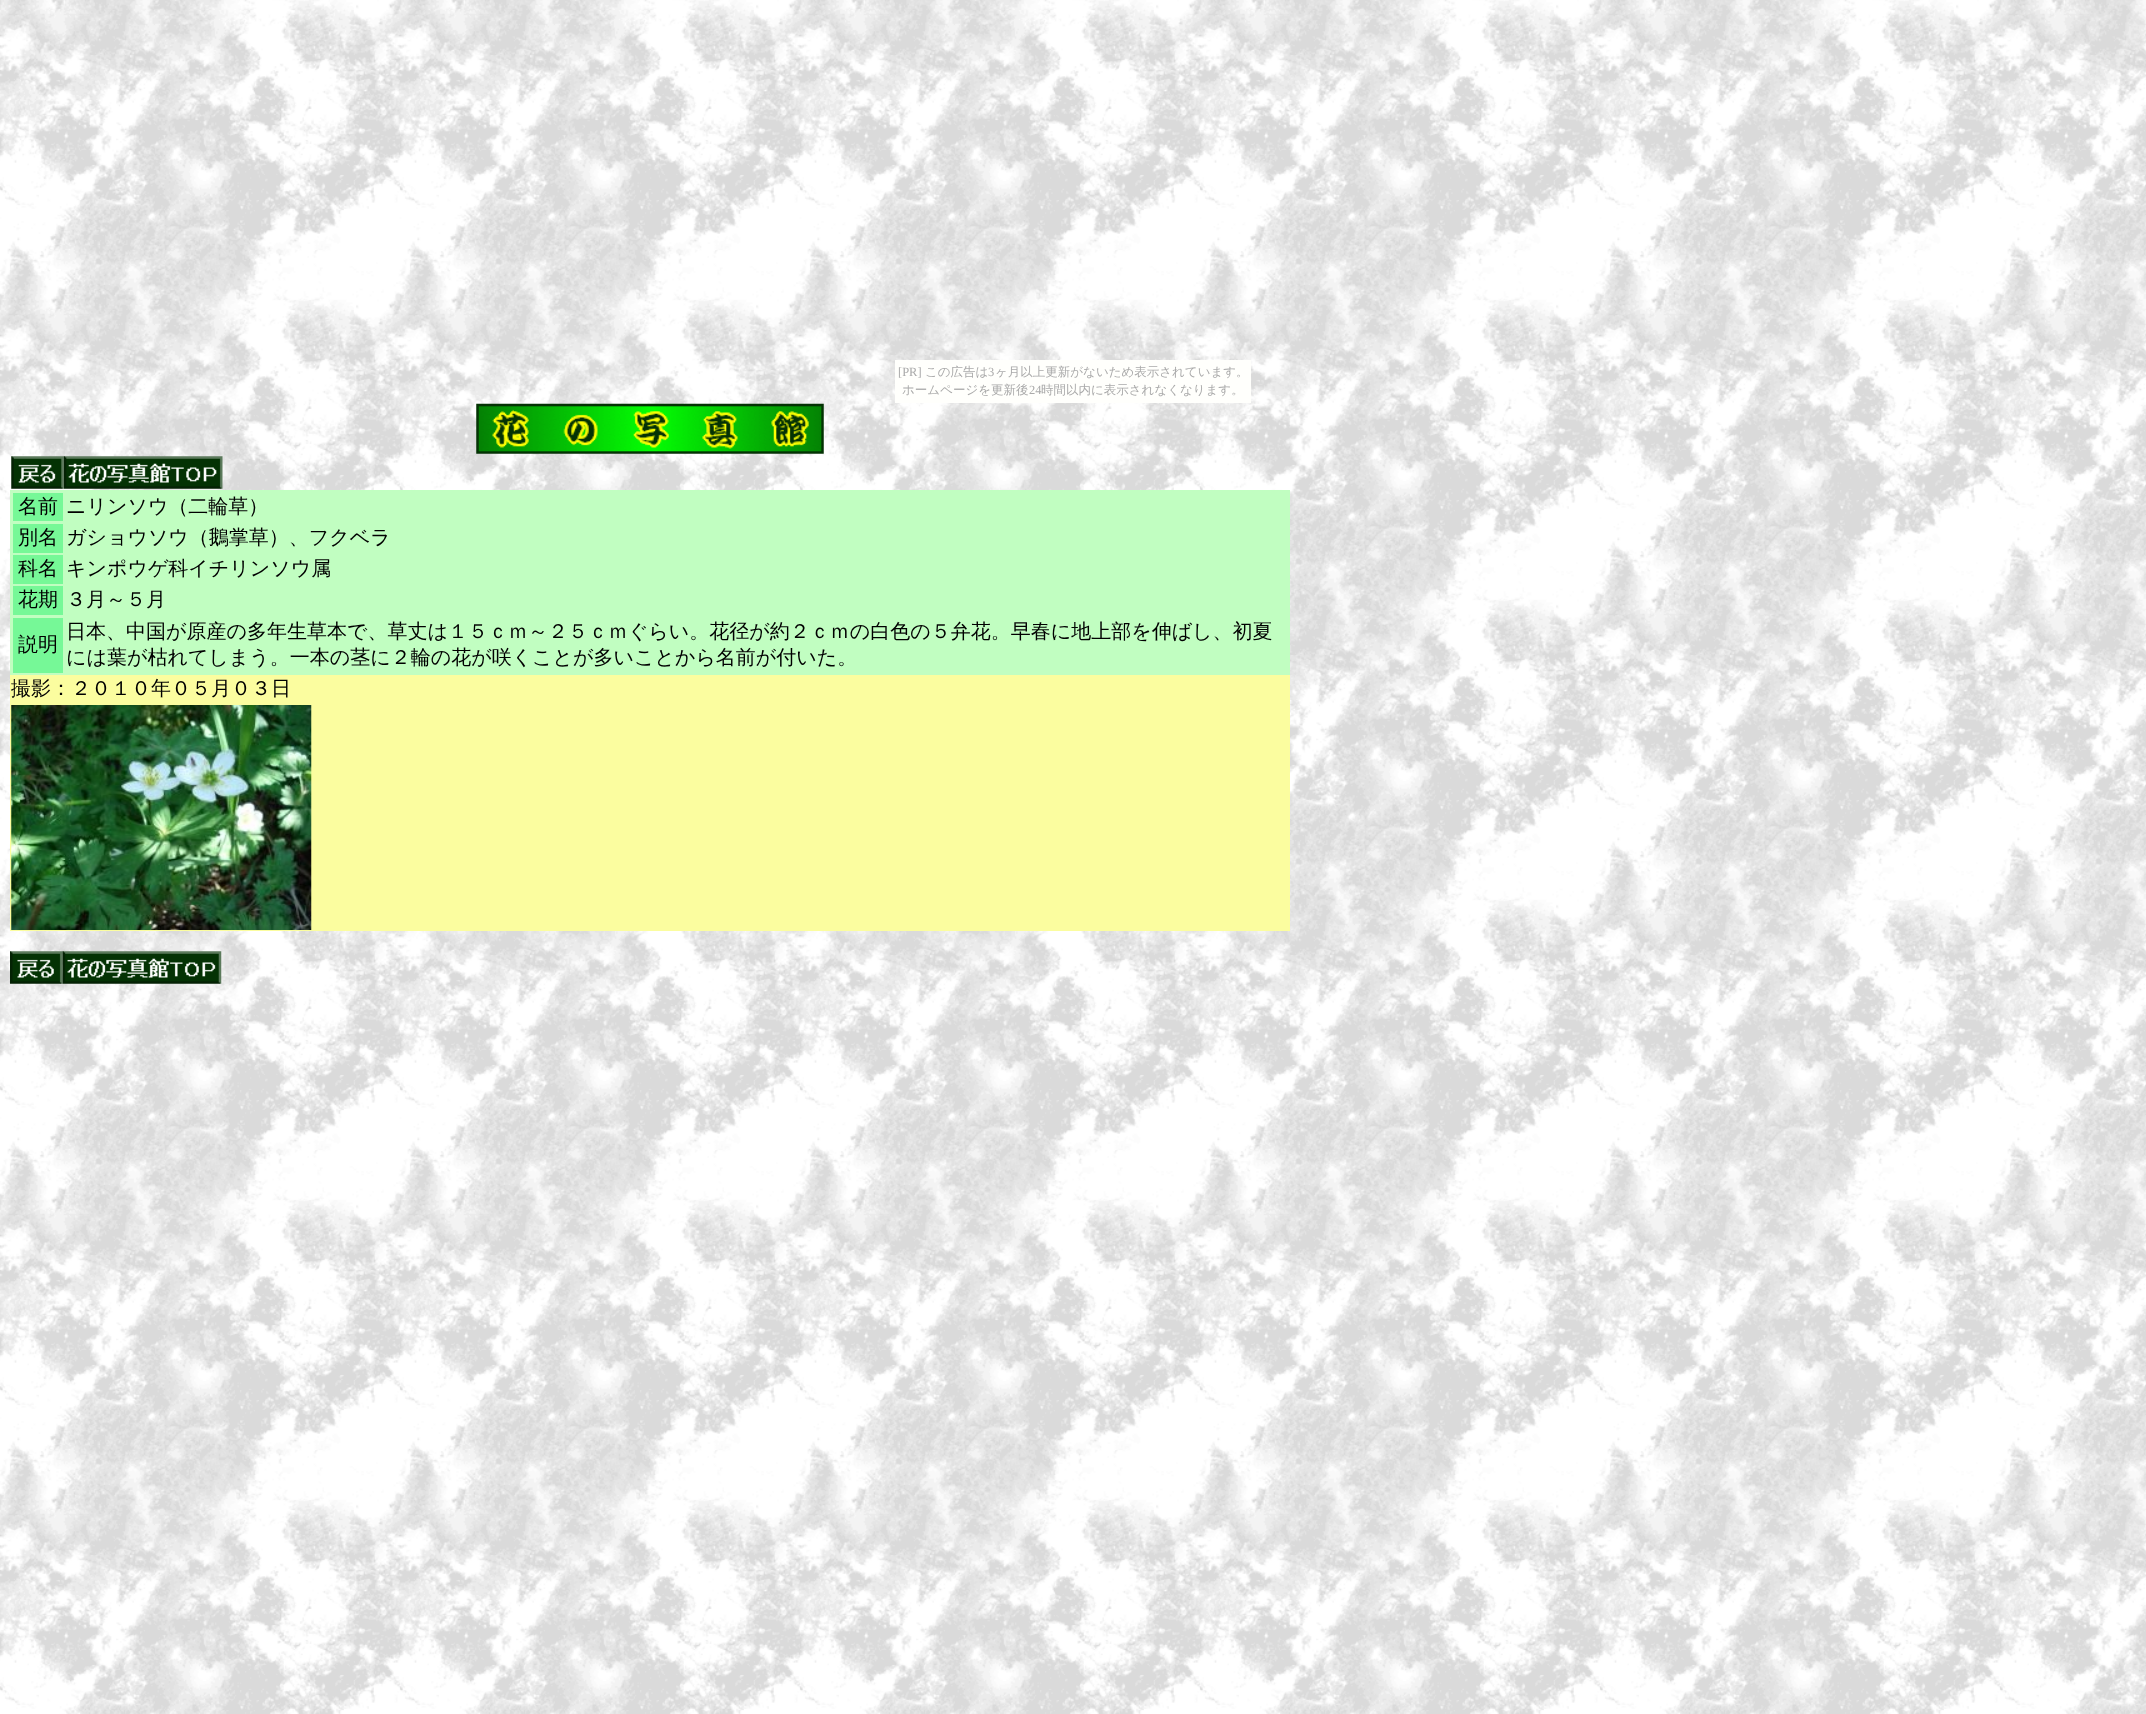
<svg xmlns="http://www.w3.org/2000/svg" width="2146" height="1714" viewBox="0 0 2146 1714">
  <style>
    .t1 { font: 12.5px Liberation Serif; fill: #aaa; }
    .t2 { font: 500 12.5px WenQuanYi Zen Hei; fill: #aaa; }
    .t3 { font: 500 20px WenQuanYi Zen Hei; fill: #000; }
  </style>
  <rect width="100%" height="100%" fill="#fff"/>
  <image x="0" y="0" width="2146" height="1714" href="images/1.png"/>
  <rect x="895" y="360" width="356" height="43" fill="#fffffc"/>
  <text x="898" y="376" class="t1">[PR]</text>
  <text x="925" y="376" class="t2">この広告は</text>
  <text x="988" y="376" class="t1">3</text>
  <text x="995" y="376" class="t2">ヶ月以上更新がないため表示されています。</text>
  <text x="902" y="394" class="t2">ホームページを更新後</text>
  <text x="1029" y="394" class="t1">24</text>
  <text x="1041" y="394" class="t2">時間以内に表示されなくなります。</text>
  <image x="476" y="403" width="348" height="51" href="images/2.png"/>
  <image x="11" y="456" width="53" height="33" href="images/3.png"/>
  <image x="63" y="456" width="160" height="33" href="images/4.png"/>
  <rect x="10" y="490" width="1280" height="185" fill="#c1fec1"/>
  <rect x="13" y="493" width="50" height="28" fill="#76f897"/>
  <text x="18" y="513" class="t3">名前</text>
  <text x="66" y="513" class="t3">ニリンソウ（二輪草）</text>
  <rect x="13" y="524" width="50" height="29" fill="#76f897"/>
  <text x="18" y="544" class="t3">別名</text>
  <text x="66" y="544" class="t3">ガショウソウ（鵝掌草）、フクベラ</text>
  <rect x="13" y="555" width="50" height="29" fill="#76f897"/>
  <text x="18" y="575" class="t3">科名</text>
  <text x="66" y="575" class="t3">キンポウゲ科イチリンソウ属</text>
  <rect x="13" y="586" width="50" height="29" fill="#76f897"/>
  <text x="18" y="606" class="t3">花期</text>
  <text x="66" y="606" class="t3">３月～５月</text>
  <rect x="13" y="618" width="50" height="55" fill="#76f897"/>
  <text x="18" y="651" class="t3">説明</text>
  <text x="66" y="638" class="t3">日本、中国が原産の多年生草本で、草丈は１５ｃｍ～２５ｃｍぐらい。花径が約２ｃｍの白色の５弁花。早春に地上部を伸ばし、初夏</text>
  <text x="66" y="664" class="t3">には葉が枯れてしまう。一本の茎に２輪の花が咲くことが多いことから名前が付いた。</text>
  <rect x="10" y="675" width="1280" height="256" fill="#fbfd9f"/>
  <text x="11" y="695" class="t3">撮影：２０１０年０５月０３日</text>
  <image x="11" y="705" width="301" height="225" href="images/5.png"/>
  <image x="10" y="951" width="53" height="33" href="images/6.png"/>
  <image x="62" y="951" width="160" height="33" href="images/7.png"/>
</svg>
